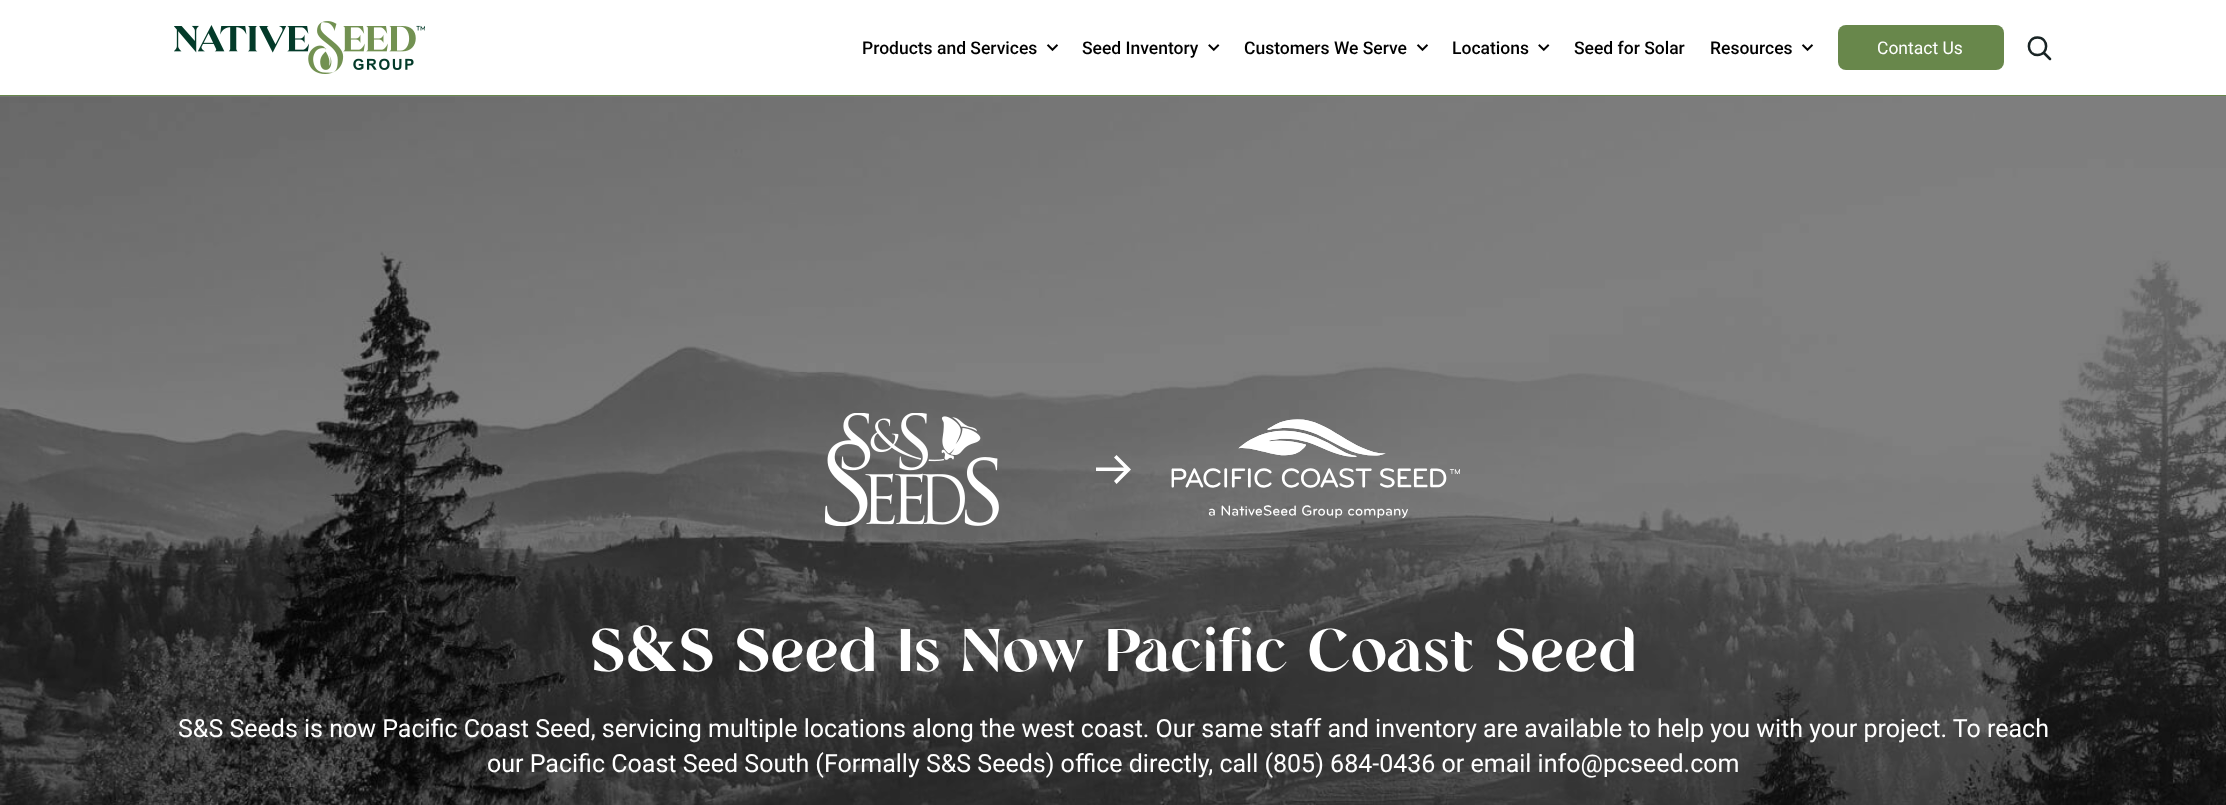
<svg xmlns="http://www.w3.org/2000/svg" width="2226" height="805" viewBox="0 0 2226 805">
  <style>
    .t1 { font: 500 17.5px Roboto; fill: #000; }
    .t2 { font: 17.5px Roboto; fill: #fff; }
    .t3 { font: 60px Tangerine; fill: #fff; }
    .t4 { font: 25px Roboto; fill: #fff; }
  </style>
  <rect width="100%" height="100%" fill="#fff"/>
  <rect x="0" y="96" width="2226" height="1" fill="#808080"/>
  <rect x="0" y="95" width="2226" height="1" fill="#68874b"/>
  <image x="174" y="21" width="251" height="53" href="images/1.png"/>
  <text x="862" y="54" class="t1">Products and Services</text>
  <image x="1046" y="44" width="13" height="8" href="images/2.png"/>
  <text x="1082" y="54" class="t1">Seed Inventory</text>
  <image x="1208" y="44" width="12" height="8" href="images/3.png"/>
  <text x="1244" y="54" class="t1">Customers We Serve</text>
  <image x="1416" y="44" width="13" height="8" href="images/2.png"/>
  <text x="1452" y="54" class="t1">Locations</text>
  <image x="1538" y="44" width="12" height="8" href="images/3.png"/>
  <text x="1574" y="54" class="t1">Seed for Solar</text>
  <text x="1710" y="54" class="t1">Resources</text>
  <image x="1801" y="44" width="13" height="8" href="images/2.png"/>
  <rect x="1838" y="25" width="166" height="45" rx="8" fill="#68874b"/>
  <text x="1877" y="54" class="t2">Contact Us</text>
  <path d="M2037.5 37.5C2049 37.5 2049 55 2037.5 55C2026 55 2026 37.5 2037.5 37.5ZM2050 59L2044.5 53.5" fill="none" stroke="#192425" stroke-width="2.5" stroke-linecap="round" stroke-linejoin="round"/>
  <image x="0" y="96" width="2226" height="709" href="images/4.png"/>
  <image x="825" y="413" width="174" height="113" href="images/5.png"/>
  <path d="M1096 471H1124L1114 481L1116.5 484L1131 469.5L1116.5 455L1114 457.5L1124 467.5H1096Z" fill="#fff"/>
  <image x="1171" y="419" width="289" height="100" href="images/6.png"/>
  <text x="590" y="671" class="t3">S&amp;S Seed Is Now Pacific Coast Seed</text>
  <text x="178" y="737" class="t4">S&amp;S Seeds is now Pacific Coast Seed, servicing multiple locations along the west coast. Our same staff and inventory are available to help you with your project. To reach</text>
  <text x="487" y="772" class="t4">our Pacific Coast Seed South (Formally S&amp;S Seeds) office directly, call (805) 684-0436 or email info@pcseed.com</text>
</svg>
